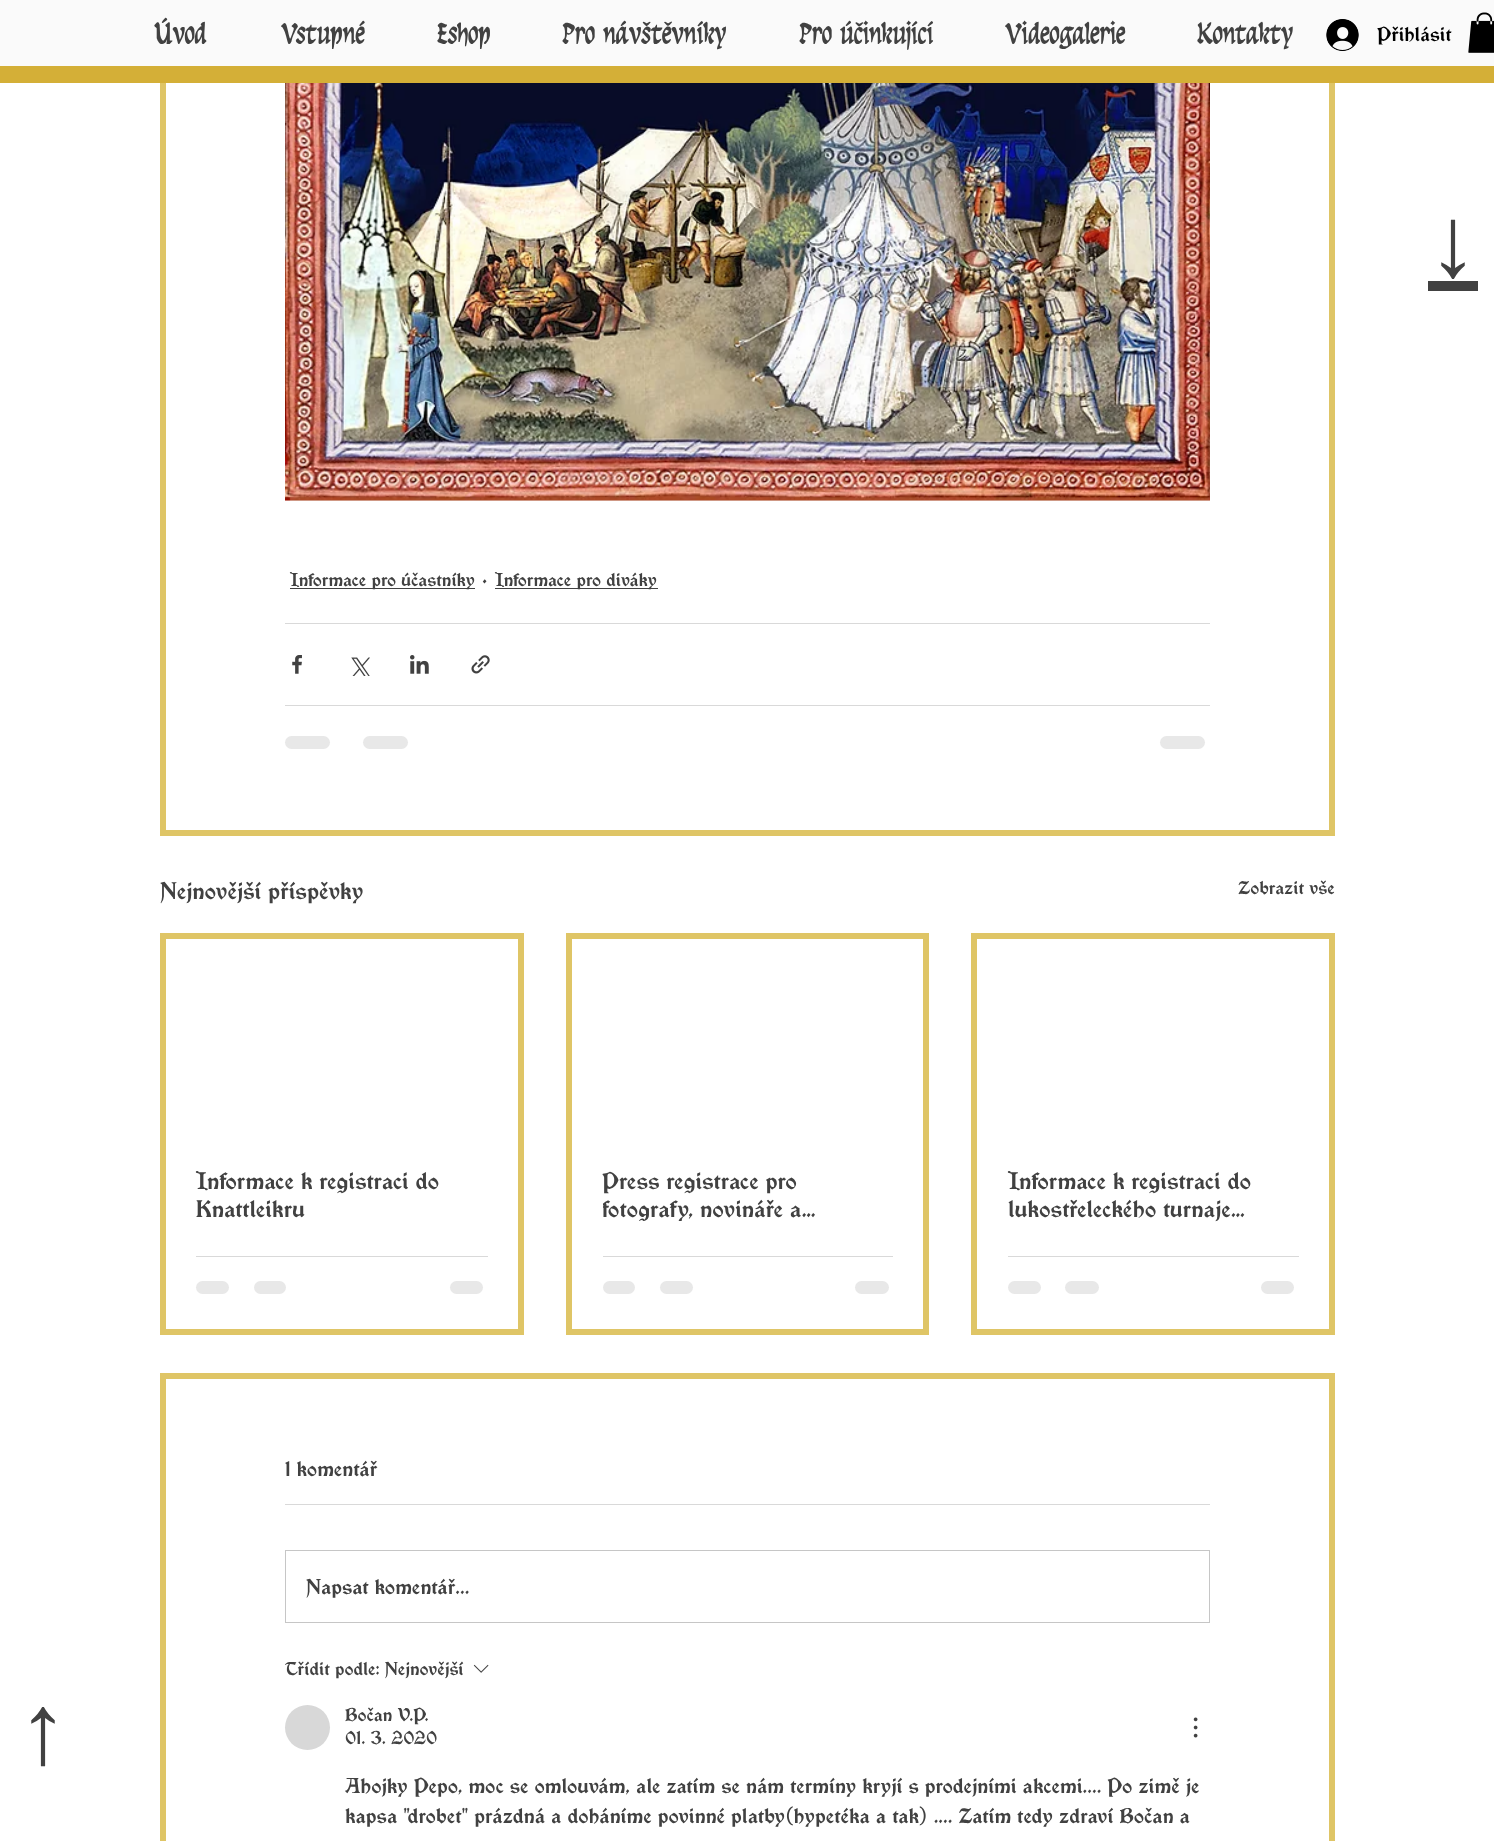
<svg xmlns="http://www.w3.org/2000/svg" width="1494" height="1841" viewBox="0 0 1494 1841">
  <style>
    .t1 { font: bold 22.5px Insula; fill: #414141; }
    .t2 { font: 19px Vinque; fill: #000; }
    .t3 { font: bold 100px Liberation Serif; fill: #414141; }
    .t4 { font: 17.5px Vinque; fill: #414141; }
    .t5 { font: 22.5px Vinque; fill: #414141; }
    .t6 { font: 20px Vinque; fill: #414141; }
  </style>
  <defs>
    <clipPath id="clip1"><rect x="603" y="1166" width="290" height="55"/></clipPath>
  </defs>
  <rect width="100%" height="100%" fill="#fff"/>
  <rect x="163" y="-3" width="1169" height="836" fill="none" stroke="#dfc566" stroke-width="6"/>
  <rect x="0" y="0" width="1494" height="66" fill="#fafafa"/>
  <text x="154" y="44" class="t1">Úvod</text>
  <text x="281" y="44" class="t1">Vstupné</text>
  <text x="437" y="44" class="t1">Eshop</text>
  <text x="562" y="44" class="t1">Pro návštěvníky</text>
  <text x="799" y="44" class="t1">Pro účinkující</text>
  <text x="1005" y="44" class="t1">Videogalerie</text>
  <text x="1197" y="44" class="t1">Kontakty</text>
  <image x="1326" y="19" width="33" height="32" href="images/1.png"/>
  <text x="1377" y="41" class="t2">Přihlásit</text>
  <image x="1468" y="12" width="26" height="41" href="images/2.png"/>
  <rect x="0" y="66" width="1494" height="17" fill="#d4af37"/>
  <text x="1428" y="276" class="t3">↓</text>
  <rect x="1428" y="281" width="50" height="10" fill="#414141"/>
  <text x="68" y="1710" transform="rotate(180 68 1710)" class="t3">↓</text>
  <image x="285" y="83" width="925" height="418" href="images/3.png"/>
  <rect x="290" y="588" width="185" height="1" fill="#414141"/>
  <text x="290" y="586" class="t4">Informace pro účastníky</text>
  <text x="482" y="588" class="t5">·</text>
  <rect x="495" y="588" width="163" height="1" fill="#414141"/>
  <text x="495" y="586" class="t4">Informace pro diváky</text>
  <rect x="285" y="623" width="925" height="1" fill="#d9d9d9"/>
  <image x="292" y="655" width="10" height="19" href="images/4.png"/>
  <image x="351" y="657" width="19" height="19" href="images/5.png"/>
  <image x="410" y="655" width="19" height="19" href="images/6.png"/>
  <image x="471" y="655" width="19" height="19" href="images/7.png"/>
  <rect x="285" y="705" width="925" height="1" fill="#d9d9d9"/>
  <rect x="285" y="736" width="45" height="13" rx="6.5" fill="#e8e8e8"/>
  <rect x="363" y="736" width="45" height="13" rx="6.5" fill="#e8e8e8"/>
  <rect x="1160" y="736" width="45" height="13" rx="6.5" fill="#e8e8e8"/>
  <text x="160" y="899" class="t5">Nejnovější příspěvky</text>
  <text x="1238" y="894" class="t4">Zobrazit vše</text>
  <rect x="163" y="936" width="358" height="396" fill="none" stroke="#dfc566" stroke-width="6"/>
  <text x="196" y="1189" class="t5">Informace k registraci do</text>
  <text x="196" y="1217" class="t5">Knattleikru</text>
  <rect x="196" y="1256" width="292" height="1" fill="#d9d9d9"/>
  <rect x="196" y="1281" width="33" height="13" rx="6.5" fill="#e8e8e8"/>
  <rect x="254" y="1281" width="32" height="13" rx="6.5" fill="#e8e8e8"/>
  <rect x="450" y="1281" width="33" height="13" rx="6.5" fill="#e8e8e8"/>
  <rect x="569" y="936" width="357" height="396" fill="none" stroke="#dfc566" stroke-width="6"/>
  <text x="602" y="1189" class="t5">Press registrace pro</text>
  <g clip-path="url(#clip1)">
    <text x="602" y="1217" class="t5">fotografy, novináře a…</text>
  </g>
  <rect x="603" y="1256" width="290" height="1" fill="#d9d9d9"/>
  <rect x="603" y="1281" width="32" height="13" rx="6.5" fill="#e8e8e8"/>
  <rect x="660" y="1281" width="33" height="13" rx="6.5" fill="#e8e8e8"/>
  <rect x="855" y="1281" width="34" height="13" rx="6.5" fill="#e8e8e8"/>
  <rect x="974" y="936" width="358" height="396" fill="none" stroke="#dfc566" stroke-width="6"/>
  <text x="1008" y="1189" class="t5">Informace k registraci do</text>
  <text x="1008" y="1217" class="t5">lukostřeleckého turnaje…</text>
  <rect x="1008" y="1256" width="291" height="1" fill="#d9d9d9"/>
  <rect x="1008" y="1281" width="33" height="13" rx="6.5" fill="#e8e8e8"/>
  <rect x="1065" y="1281" width="34" height="13" rx="6.5" fill="#e8e8e8"/>
  <rect x="1261" y="1281" width="33" height="13" rx="6.5" fill="#e8e8e8"/>
  <rect x="163" y="1376" width="1169" height="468" fill="none" stroke="#dfc566" stroke-width="6"/>
  <text x="285" y="1476" class="t6">1 komentář</text>
  <rect x="285" y="1504" width="925" height="1" fill="#d9d9d9"/>
  <rect x="285.5" y="1550.5" width="924" height="72" fill="none" stroke="#c6c6c6"/>
  <text x="306" y="1594" class="t6">Napsat komentář...</text>
  <text x="285" y="1675" class="t4">Třídit podle: Nejnovější</text>
  <image x="473" y="1664" width="16" height="9" href="images/8.png"/>
  <circle cx="307.5" cy="1727.5" r="22.5" fill="#d8d8d8"/>
  <text x="345" y="1721" class="t4">Bočan V.P.</text>
  <text x="345" y="1744" class="t4">01. 3. 2020</text>
  <image x="1193" y="1717" width="5" height="21" href="images/9.png"/>
  <text x="345" y="1793" class="t6">Ahojky Pepo, moc se omlouvám, ale zatím se nám termíny kryjí s prodejními akcemi.... Po zimě je</text>
  <text x="345" y="1823" class="t6">kapsa "drobet" prázdná a doháníme povinné platby(hypetéka a tak) .... Zatím tedy zdraví Bočan a</text>
</svg>
